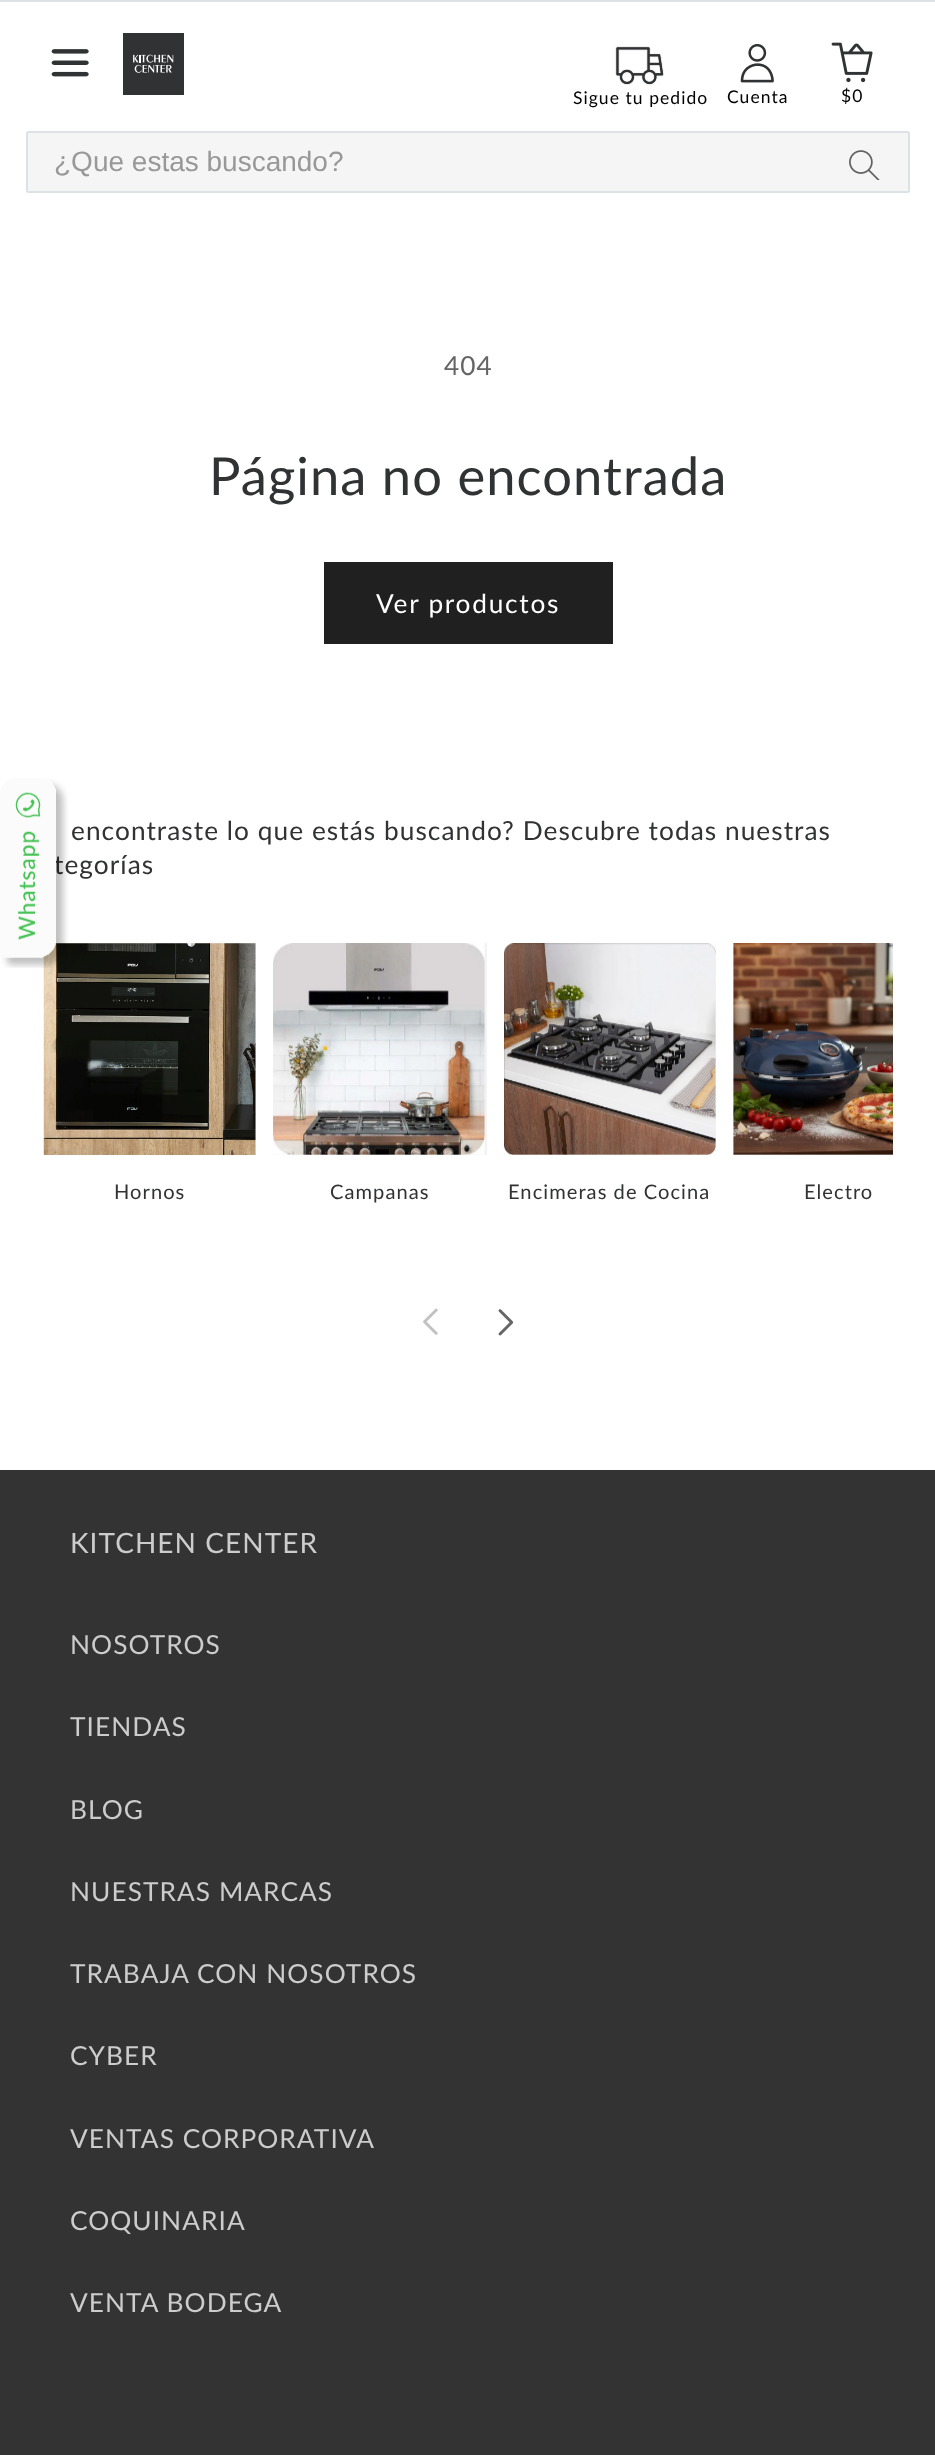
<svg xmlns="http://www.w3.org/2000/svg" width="935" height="2455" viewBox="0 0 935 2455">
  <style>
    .t1 { font: 17.5px Lato; letter-spacing: 1.05px; fill: #000; }
    .t2 { font: 28px Liberation Sans; fill: #989899; }
    .t3 { font: 26.25px Lato; letter-spacing: 1.05px; fill: #313234; }
    .t4 { font: 26.25px Lato; letter-spacing: 1.05px; fill: #656567; }
    .t5 { font: 52.5px Lato; letter-spacing: 1.05px; fill: #313234; }
    .t6 { font: 26.25px Lato; letter-spacing: 1.75px; fill: #fff; }
    .t7 { font: 20.1px Lato; letter-spacing: 1.05px; fill: #313234; }
    .t8 { font: 28px Lato; letter-spacing: 1.05px; fill: #ccc; }
    .t9 { font: 26.25px Lato; letter-spacing: 1.05px; fill: #ccc; }
  </style>
  <rect width="100%" height="100%" fill="#fff"/>
  <rect x="0" y="0" width="935" height="2" fill="#dee2e6"/>
  <image x="51" y="49" width="38" height="28" href="images/1.png"/>
  <image x="123" y="33" width="61" height="62" href="images/2.png"/>
  <image x="615" y="46" width="49" height="39" href="images/3.png"/>
  <text x="573" y="104" class="t1">Sigue tu pedido</text>
  <image x="740" y="44" width="34" height="39" href="images/4.png"/>
  <text x="727" y="103" class="t1">Cuenta</text>
  <image x="831" y="42" width="42" height="41" href="images/5.png"/>
  <text x="841" y="102" class="t1">$0</text>
  <rect x="27" y="132" width="882" height="60" rx="1.5" fill="#f5f5f5" stroke="#dee2e6" stroke-width="2"/>
  <text x="54" y="171" class="t2">¿Que estas buscando?</text>
  <image x="849" y="150" width="31" height="30" href="images/6.png"/>
  <text x="54" y="874" class="t3">tegorías</text>
  <rect x="55" y="943" width="201" height="212" fill="#f3f3f3"/>
  <image x="43" y="943" width="213" height="212" href="images/8.png"/>
  <image x="0" y="778" width="68" height="190" href="images/7.png"/>
  <text x="444" y="375" class="t4">404</text>
  <text x="209" y="495" class="t5">Página no encontrada</text>
  <rect x="324" y="562" width="289" height="82" fill="#202020"/>
  <text x="376" y="613" class="t6">Ver productos</text>
  <text x="71" y="840" class="t3">encontraste lo que estás buscando? Descubre todas nuestras</text>
  <text x="114" y="1199" class="t7">Hornos</text>
  <rect x="273" y="943" width="214" height="212" fill="#f3f3f3"/>
  <image x="273" y="943" width="212" height="212" href="images/9.png"/>
  <text x="330" y="1199" class="t7">Campanas</text>
  <rect x="504" y="943" width="212" height="212" fill="#f3f3f3"/>
  <image x="504" y="943" width="212" height="212" href="images/10.png"/>
  <text x="508" y="1199" class="t7">Encimeras de Cocina</text>
  <rect x="733" y="943" width="160" height="212" fill="#f3f3f3"/>
  <image x="733" y="943" width="160" height="212" href="images/11.png"/>
  <text x="804" y="1199" class="t7">Electro</text>
  <image x="423" y="1308" width="15" height="27" href="images/12.png"/>
  <image x="498" y="1309" width="16" height="27" href="images/13.png"/>
  <rect x="0" y="1470" width="935" height="985" fill="#333"/>
  <text x="70" y="1553" class="t8">KITCHEN CENTER</text>
  <text x="70" y="1654" class="t9">NOSOTROS</text>
  <text x="70" y="1736" class="t9">TIENDAS</text>
  <text x="70" y="1819" class="t9">BLOG</text>
  <text x="70" y="1901" class="t9">NUESTRAS MARCAS</text>
  <text x="70" y="1983" class="t9">TRABAJA CON NOSOTROS</text>
  <text x="70" y="2065" class="t9">CYBER</text>
  <text x="70" y="2148" class="t9">VENTAS CORPORATIVA</text>
  <text x="70" y="2230" class="t9">COQUINARIA</text>
  <text x="70" y="2312" class="t9">VENTA BODEGA</text>
</svg>
